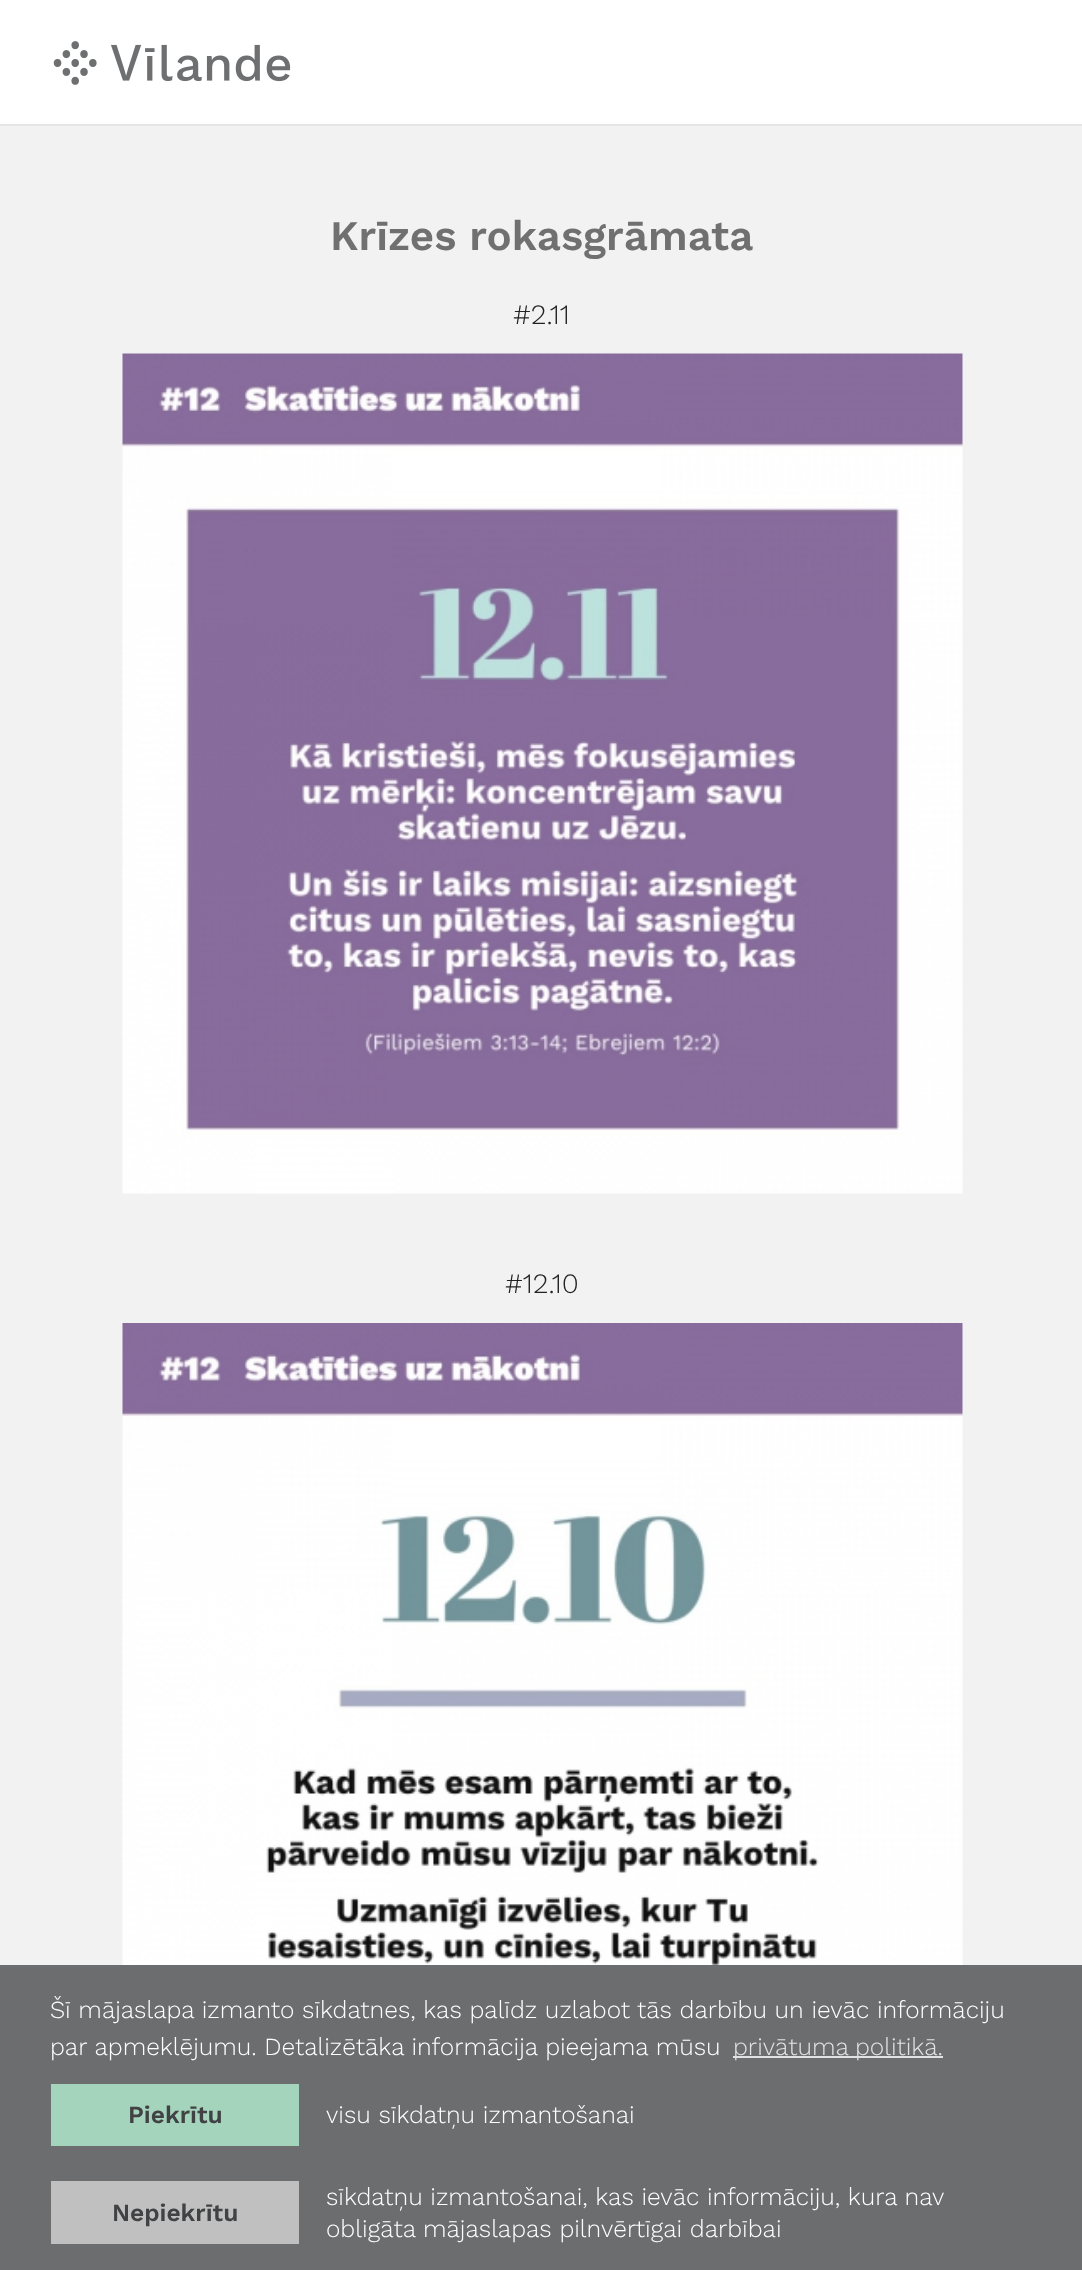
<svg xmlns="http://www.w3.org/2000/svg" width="1082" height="2270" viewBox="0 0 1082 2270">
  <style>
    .t1 { font: 600 42px Work Sans; fill: #707070; }
    .t2 { font: 300 28px Work Sans; fill: #222; }
    .t3 { font: 300 24.5px Work Sans; fill: #fff; }
    .t4 { font: 300 24.5px Work Sans; fill: #e1e2e2; }
    .t5 { font: 600 24.5px Work Sans; fill: #404244; }
  </style>
  <rect width="100%" height="100%" fill="#f2f2f2"/>
  <rect x="0" y="0" width="1082" height="124" fill="#fff"/>
  <rect x="0" y="124" width="1082" height="2" fill="#e5e5e5"/>
  <image x="53" y="41" width="238" height="44" href="images/1.png"/>
  <text x="330" y="250" class="t1">Krīzes rokasgrāmata</text>
  <text x="513" y="324" class="t2">#2.11</text>
  <image x="122" y="353" width="841" height="841" href="images/2.png"/>
  <text x="505" y="1293" class="t2">#12.10</text>
  <image x="122" y="1323" width="841" height="642" href="images/3.png"/>
  <rect x="0" y="1965" width="1082" height="305" fill="#6b6d6f"/>
  <text x="50" y="2018" class="t3">Šī mājaslapa izmanto sīkdatnes, kas palīdz uzlabot tās darbību un ievāc informāciju</text>
  <text x="50" y="2055" class="t3">par apmeklējumu. Detalizētāka informācija pieejama mūsu</text>
  <rect x="733" y="2056" width="210" height="2" fill="#e1e2e2"/>
  <text x="733" y="2055" word-spacing="-1" class="t4">privātuma politikā.</text>
  <rect x="51" y="2084" width="248" height="62" fill="#a5d4bd"/>
  <text x="128" y="2123" class="t5">Piekrītu</text>
  <text x="326" y="2123" class="t3">visu sīkdatņu izmantošanai</text>
  <rect x="51" y="2181" width="248" height="63" fill="#c0c0c0"/>
  <text x="112" y="2221" class="t5">Nepiekrītu</text>
  <text x="326" y="2205" class="t3">sīkdatņu izmantošanai, kas ievāc informāciju, kura nav</text>
  <text x="326" y="2237" class="t3">obligāta mājaslapas pilnvērtīgai darbībai</text>
</svg>
